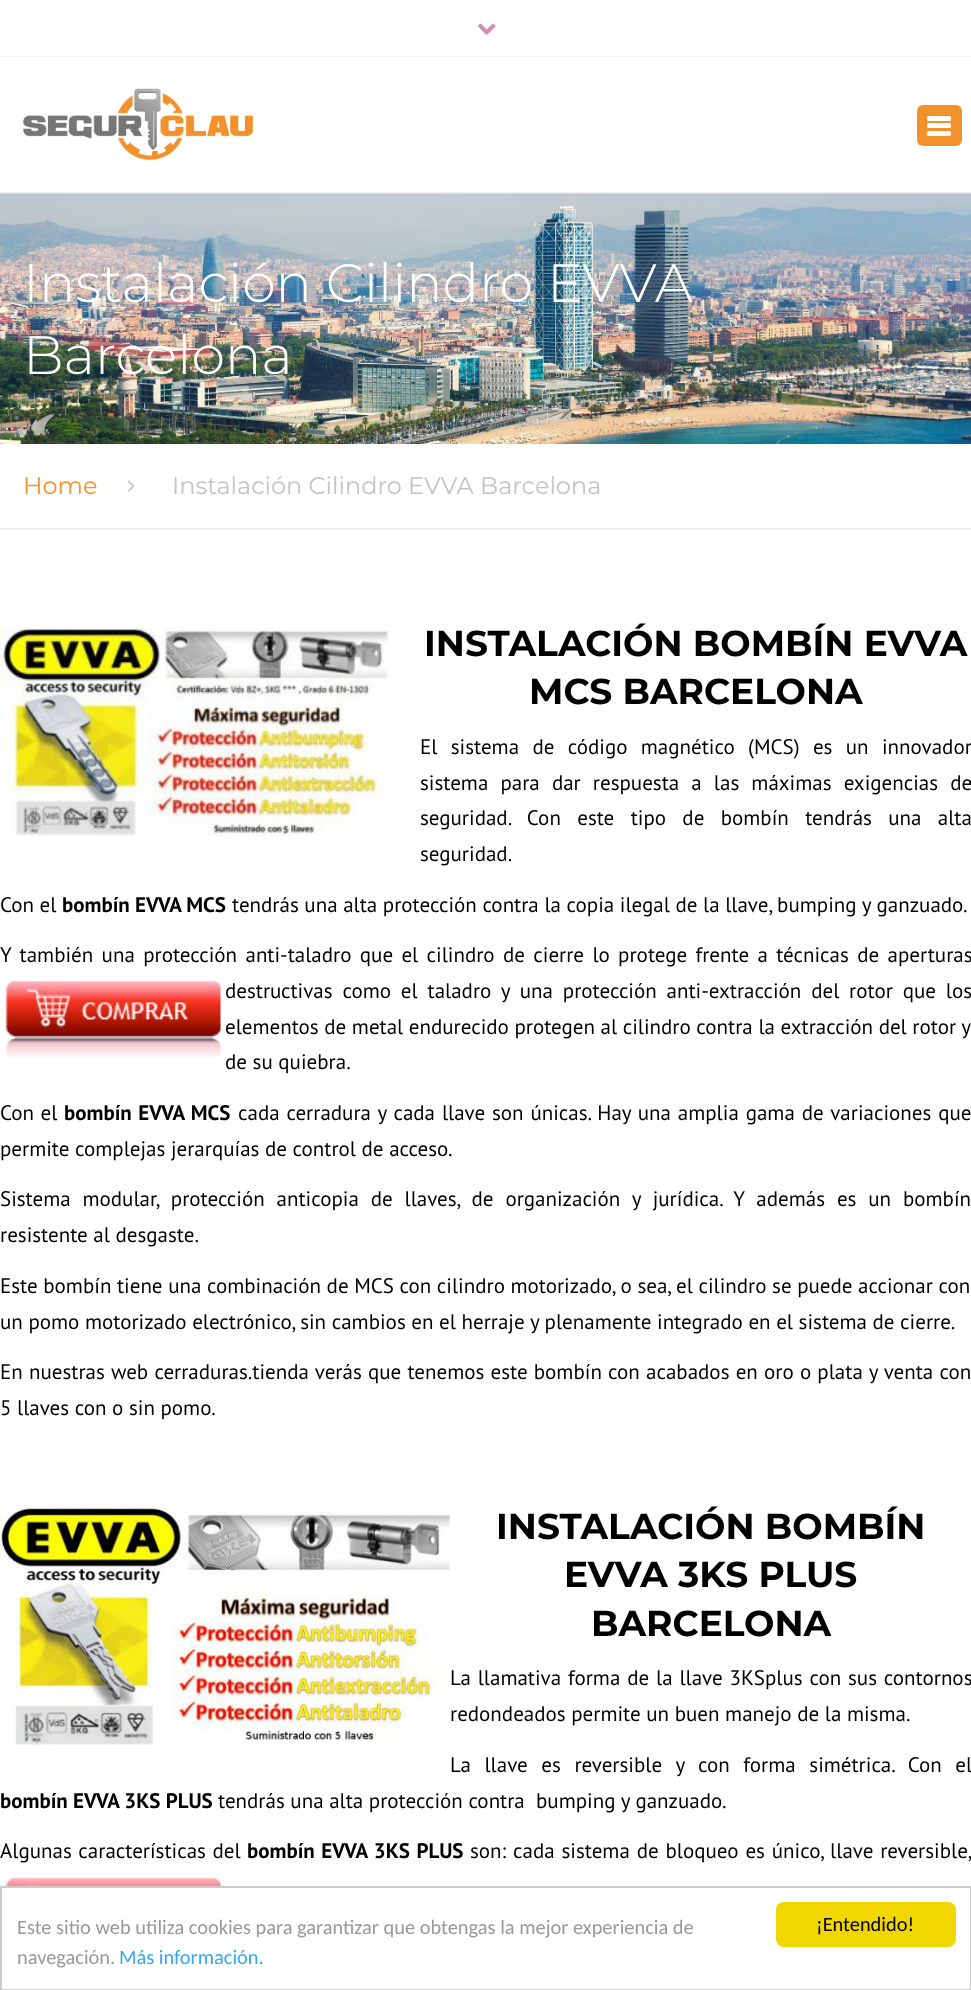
<svg xmlns="http://www.w3.org/2000/svg" width="971" height="1990" viewBox="0 0 971 1990">
  <style>
    .t1 { font: 300 54px Montserrat; fill: #fff; }
    .t2 { font: 24px Montserrat; fill: #f3912c; }
    .t3 { font: 24px Montserrat; fill: #c3c3c3; }
    .t4 { font: bold 36px Montserrat; fill: #000; }
    .t5 { font: 21px PT Sans; fill: #000; }
    .t6 { font: bold 21px PT Sans; fill: #000; }
    .t7 { font: 20.4px Carlito; fill: #999; }
    .t8 { font: 20.4px Carlito; fill: #31a8f0; }
    .t9 { font: 20.4px Carlito; fill: #000; }
  </style>
  <rect width="100%" height="100%" fill="#fff"/>
  <rect x="0" y="56" width="971" height="1" fill="#f2f2f2"/>
  <image x="478" y="23" width="18" height="12" href="images/1.png"/>
  <image x="0" y="193" width="971" height="251" href="images/3.png"/>
  <rect x="0" y="192" width="971" height="2" fill="#0000000d"/>
  <image x="23" y="88" width="231" height="73" href="images/2.png"/>
  <rect x="917" y="105" width="45" height="41" rx="6" fill="#f3912c"/>
  <rect x="927" y="116" width="24" height="5" rx="1.5" fill="#fff"/>
  <rect x="927" y="123" width="24" height="5" rx="1.5" fill="#fff"/>
  <rect x="927" y="131" width="24" height="5" rx="1.5" fill="#fff"/>
  <text x="23" y="302" class="t1">Instalación Cilindro EVVA</text>
  <text x="23" y="374" class="t1">Barcelona</text>
  <rect x="0" y="528" width="971" height="2" fill="#efefef"/>
  <text x="23" y="494" class="t2">Home</text>
  <image x="127" y="480" width="8" height="12" href="images/4.png"/>
  <text x="172" y="494" class="t3">Instalación Cilindro EVVA Barcelona</text>
  <image x="0" y="627" width="389" height="209" href="images/5.png"/>
  <text x="424" y="656" class="t4">INSTALACIÓN BOMBÍN EVVA</text>
  <text x="529" y="704" class="t4">MCS BARCELONA</text>
  <text x="420" y="754" word-spacing="7.75" class="t5">El sistema de código magnético (MCS) es un innovador</text>
  <text x="420" y="790" word-spacing="6.5" class="t5">sistema para dar respuesta a las máximas exigencias de</text>
  <text x="420" y="825" word-spacing="10.75" class="t5">seguridad. Con este tipo de bombín tendrás una alta</text>
  <text x="420" y="861" class="t5">seguridad.</text>
  <text x="0" y="912" class="t5">Con el</text>
  <text x="62" y="912" class="t6">bombín EVVA MCS</text>
  <text x="232" y="912" class="t5">tendrás una alta protección contra la copia ilegal de la llave, bumping y ganzuado.</text>
  <text x="0" y="962" word-spacing="2.75" class="t5">Y también una protección anti-taladro que el cilindro de cierre lo protege frente a técnicas de aperturas</text>
  <image x="4" y="980" width="217" height="77" href="images/6.png"/>
  <text x="225" y="998" class="t5">destru</text>
  <text x="281" y="998" word-spacing="4.25" class="t5">ctivas como el taladro y una protección anti-extracción del rotor que los</text>
  <text x="225" y="1034" class="t5">elementos de metal endurecido protegen al cilindro contra la extracción del rotor y</text>
  <text x="225" y="1069" class="t5">de su quiebra.</text>
  <text x="0" y="1120" word-spacing="1" class="t5">Con el</text>
  <text x="64" y="1120" word-spacing="1.25" class="t6">bombín EVVA MCS</text>
  <text x="238" y="1120" word-spacing="1.25" class="t5">cada cerradura y cada llave son únicas. Hay una amplia gama de variaciones que</text>
  <text x="0" y="1156" class="t5">permite complejas jerarquías de control de acceso.</text>
  <text x="0" y="1206" word-spacing="6.25" class="t5">Sistema modular, protección anticopia de llaves, de organización y jurídica. Y además es un bombín</text>
  <text x="0" y="1242" class="t5">resistente al desgaste.</text>
  <text x="0" y="1293" class="t5">Este bombín tiene una combinación de MCS con cilindro motorizado, o sea, el cilindro se puede accionar con</text>
  <text x="0" y="1329" class="t5">un pomo motorizado electrónico, sin cambios en el herraje y plenamente integrado en el sistema de cierre.</text>
  <text x="0" y="1379" word-spacing="0.6" class="t5">En nuestras web cerraduras.tienda verás que tenemos este bombín con acabados en oro o plata y venta con</text>
  <text x="0" y="1415" class="t5">5 llaves con o sin pomo.</text>
  <image x="0" y="1504" width="450" height="242" href="images/7.png"/>
  <text x="496" y="1539" class="t4">INSTALACIÓN BOMBÍN</text>
  <text x="564" y="1587" class="t4">EVVA 3KS PLUS</text>
  <text x="591" y="1636" class="t4">BARCELONA</text>
  <text x="450" y="1685" word-spacing="1.25" class="t5">La llamativa forma de la llave 3KSplus con sus contornos</text>
  <text x="450" y="1721" class="t5">redondeados permite un buen manejo de la misma.</text>
  <text x="450" y="1772" word-spacing="8" class="t5">La llave es reversible y con forma simétrica. Con el</text>
  <text x="0" y="1808" class="t6">bombín EVVA 3KS PLUS</text>
  <text x="218" y="1808" class="t5" xml:space="preserve">tendrás una alta protección contra  bumping y ganzuado.</text>
  <text x="0" y="1858" word-spacing="1" class="t5">Algunas características del</text>
  <text x="247" y="1858" word-spacing="1.25" class="t6">bombín EVVA 3KS PLUS</text>
  <text x="470" y="1858" word-spacing="1.25" class="t5">son: cada sistema de bloqueo es único, llave reversible,</text>
  <image x="4" y="1877" width="217" height="9" href="images/8.png"/>
  <rect x="1" y="1887" width="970" height="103" fill="none" stroke="#ccc" stroke-width="2"/>
  <text x="17" y="1934" class="t7">Este sitio web utiliza cookies para garantizar que obtengas la mejor experiencia de</text>
  <text x="17" y="1964" class="t7">navegación.</text>
  <text x="119" y="1964" class="t8">Más información.</text>
  <rect x="776" y="1902" width="180" height="45" rx="8" fill="#f1d600"/>
  <text x="816" y="1931" class="t9">¡Entendido!</text>
</svg>
